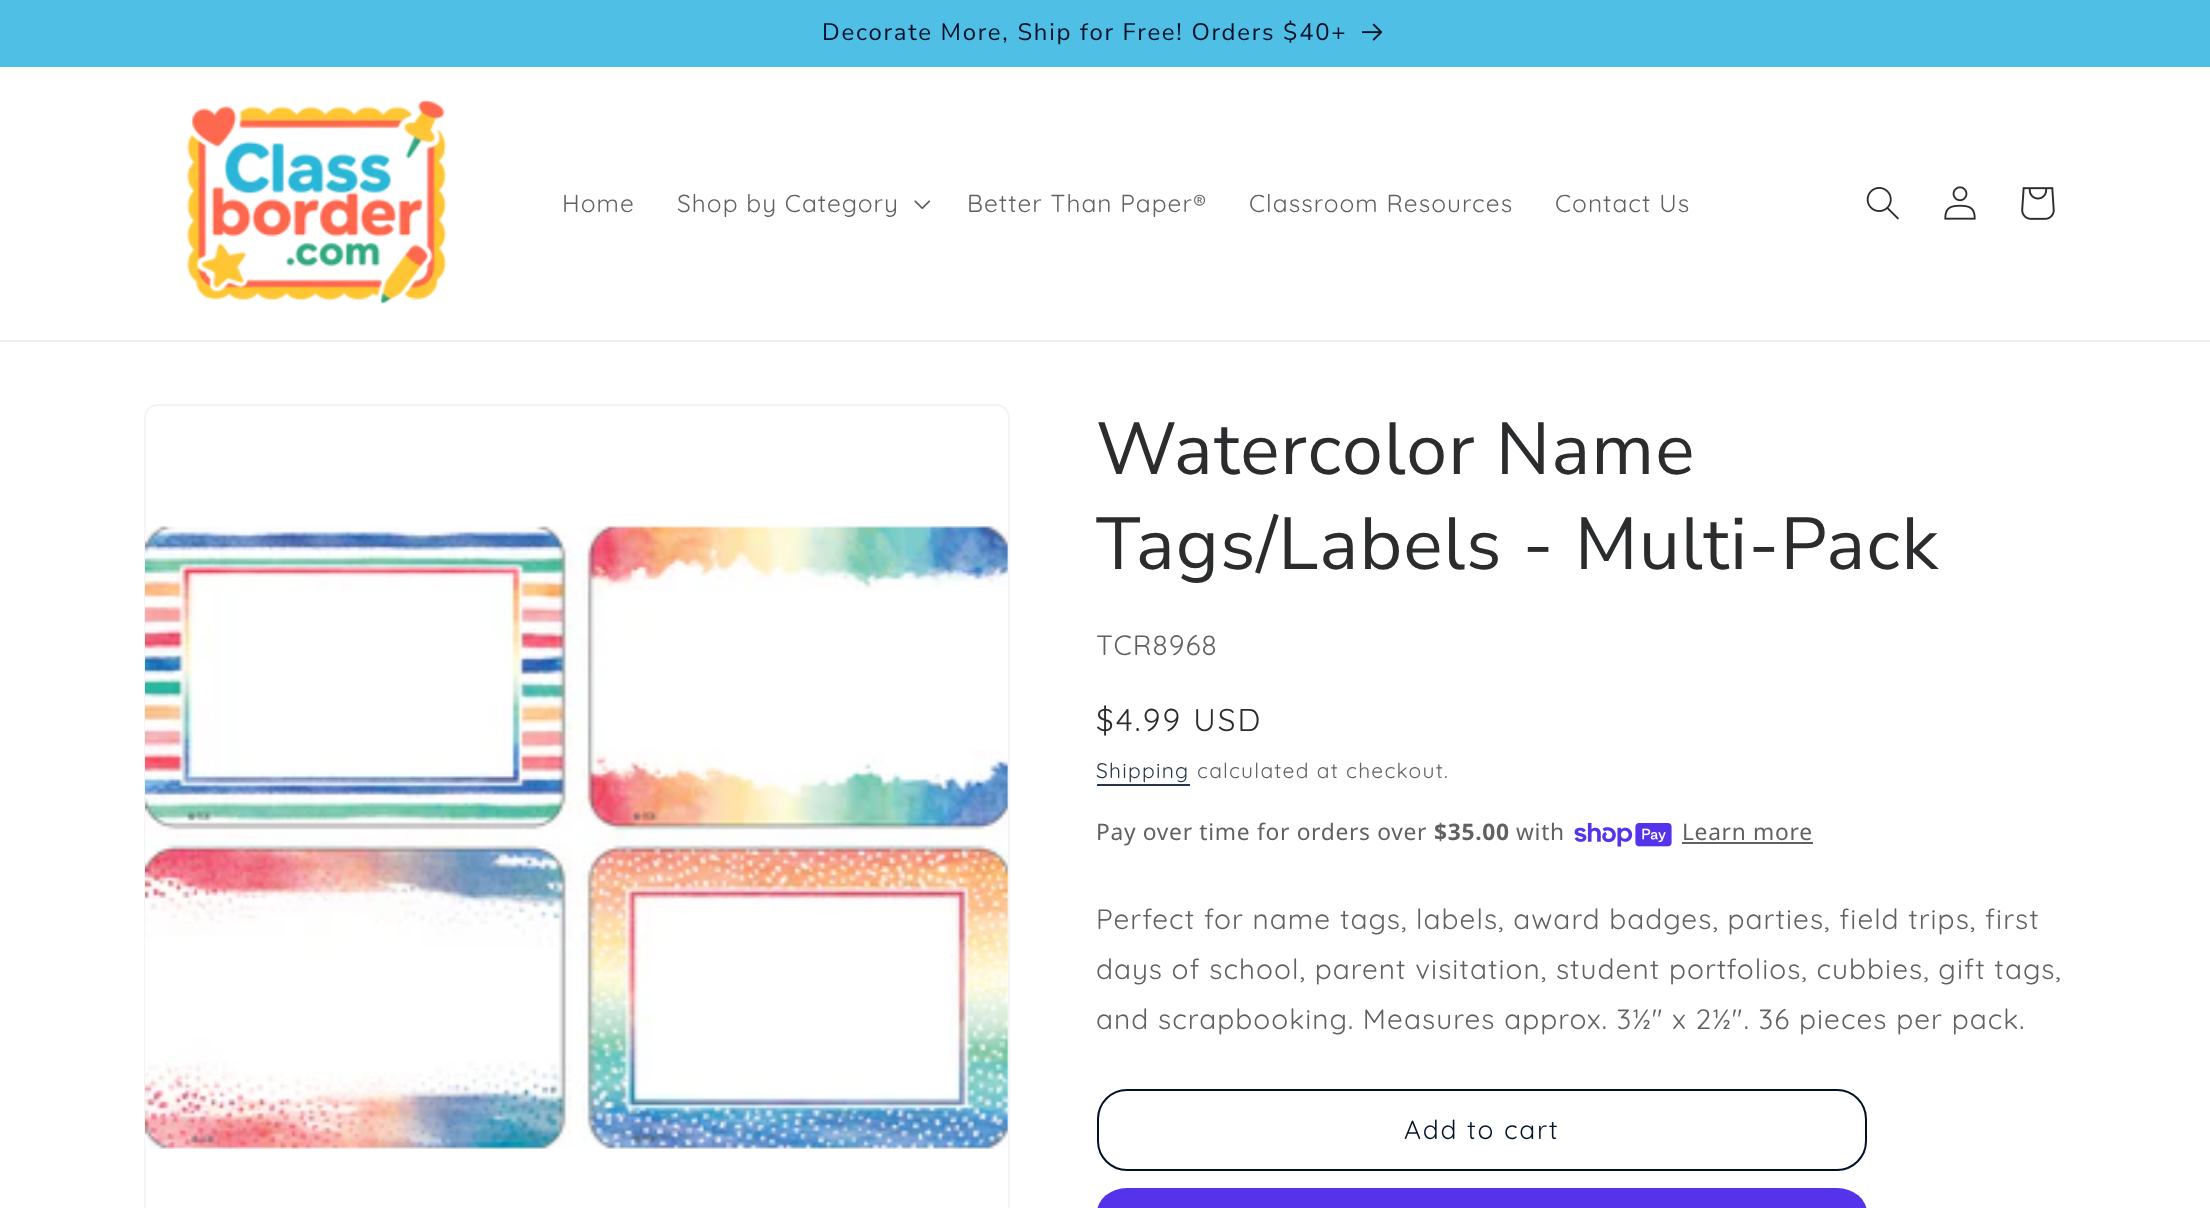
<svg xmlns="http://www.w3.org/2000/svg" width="2210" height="1208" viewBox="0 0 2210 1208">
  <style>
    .t1 { font: 23.9px Nunito Sans; letter-spacing: 1.75px; fill: #001128; }
    .t2 { font: 24.5px Quicksand; letter-spacing: 1.05px; fill: #606162; }
    .t3 { font: 73.5px Nunito Sans; letter-spacing: 1.1px; fill: #2b2c2d; }
    .t4 { font: 28px Quicksand; letter-spacing: 1.05px; fill: #606162; }
    .t5 { font: 31.5px Quicksand; letter-spacing: 2.25px; fill: #2b2c2d; }
    .t6 { font: 21px Quicksand; letter-spacing: 1.25px; fill: #263548; }
    .t7 { font: 21px Quicksand; letter-spacing: 1.25px; fill: #606162; }
    .t8 { font: 22.75px Noto Sans; letter-spacing: 0.7px; fill: #606162; }
    .t9 { font: bold 22.75px Noto Sans; letter-spacing: 0.7px; fill: #606162; }
    .t10 { font: 26.25px Quicksand; letter-spacing: 1.75px; fill: #001128; }
  </style>
  <rect width="100%" height="100%" fill="#fff"/>
  <rect x="0" y="0" width="2210" height="67" fill="#50bfe6"/>
  <text x="822" y="40" class="t1">Decorate More, Ship for Free! Orders $40+</text>
  <image x="1362" y="23" width="21" height="18" href="images/1.png"/>
  <rect x="0" y="340" width="2210" height="2" fill="#eee"/>
  <image x="186" y="99" width="261" height="205" href="images/2.png"/>
  <text x="562" y="212" class="t2">Home</text>
  <text x="677" y="212" class="t2">Shop by Category</text>
  <image x="914" y="200" width="17" height="10" href="images/3.png"/>
  <text x="967" y="212" class="t2">Better Than Paper®</text>
  <text x="1249" y="212" class="t2">Classroom Resources</text>
  <text x="1555" y="212" class="t2">Contact Us</text>
  <image x="1866" y="187" width="33" height="33" href="images/4.png"/>
  <image x="1944" y="186" width="32" height="34" href="images/5.png"/>
  <image x="2021" y="187" width="34" height="33" href="images/6.png"/>
  <rect x="145" y="405" width="864" height="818" rx="13" fill="none" stroke="#f4f4f5" stroke-width="2"/>
  <image x="145" y="526" width="863" height="623" href="images/7.png"/>
  <text x="1096" y="474" class="t3">Watercolor Name</text>
  <text x="1096" y="569" class="t3">Tags/Labels - Multi-Pack</text>
  <text x="1096" y="655" class="t4">TCR8968</text>
  <text x="1096" y="731" class="t5">$4.99 USD</text>
  <text x="1096" y="778" class="t6">Shipping</text>
  <rect x="1097" y="784" width="93" height="2" fill="#263548"/>
  <text x="1197" y="778" class="t7">calculated at checkout.</text>
  <text x="1096" y="840" class="t8">Pay over time for orders over</text>
  <text x="1434" y="840" class="t9">$35.00</text>
  <text x="1516" y="840" class="t8">with</text>
  <image x="1574" y="823" width="98" height="24" href="images/8.png"/>
  <text x="1682" y="840" class="t8">Learn more</text>
  <rect x="1682" y="842" width="131" height="2" fill="#606162"/>
  <text x="1096" y="929" class="t4">Perfect for name tags, labels, award badges, parties, field trips, first</text>
  <text x="1096" y="979" class="t4">days of school, parent visitation, student portfolios, cubbies, gift tags,</text>
  <text x="1096" y="1029" class="t4">and scrapbooking. Measures approx. 3½" x 2½". 36 pieces per pack.</text>
  <rect x="1098" y="1090" width="768" height="80" rx="29" fill="none" stroke="#001128" stroke-width="2"/>
  <text x="1404" y="1139" class="t10">Add to cart</text>
  <rect x="1097" y="1188" width="770" height="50" rx="30" fill="#5433eb"/>
</svg>
